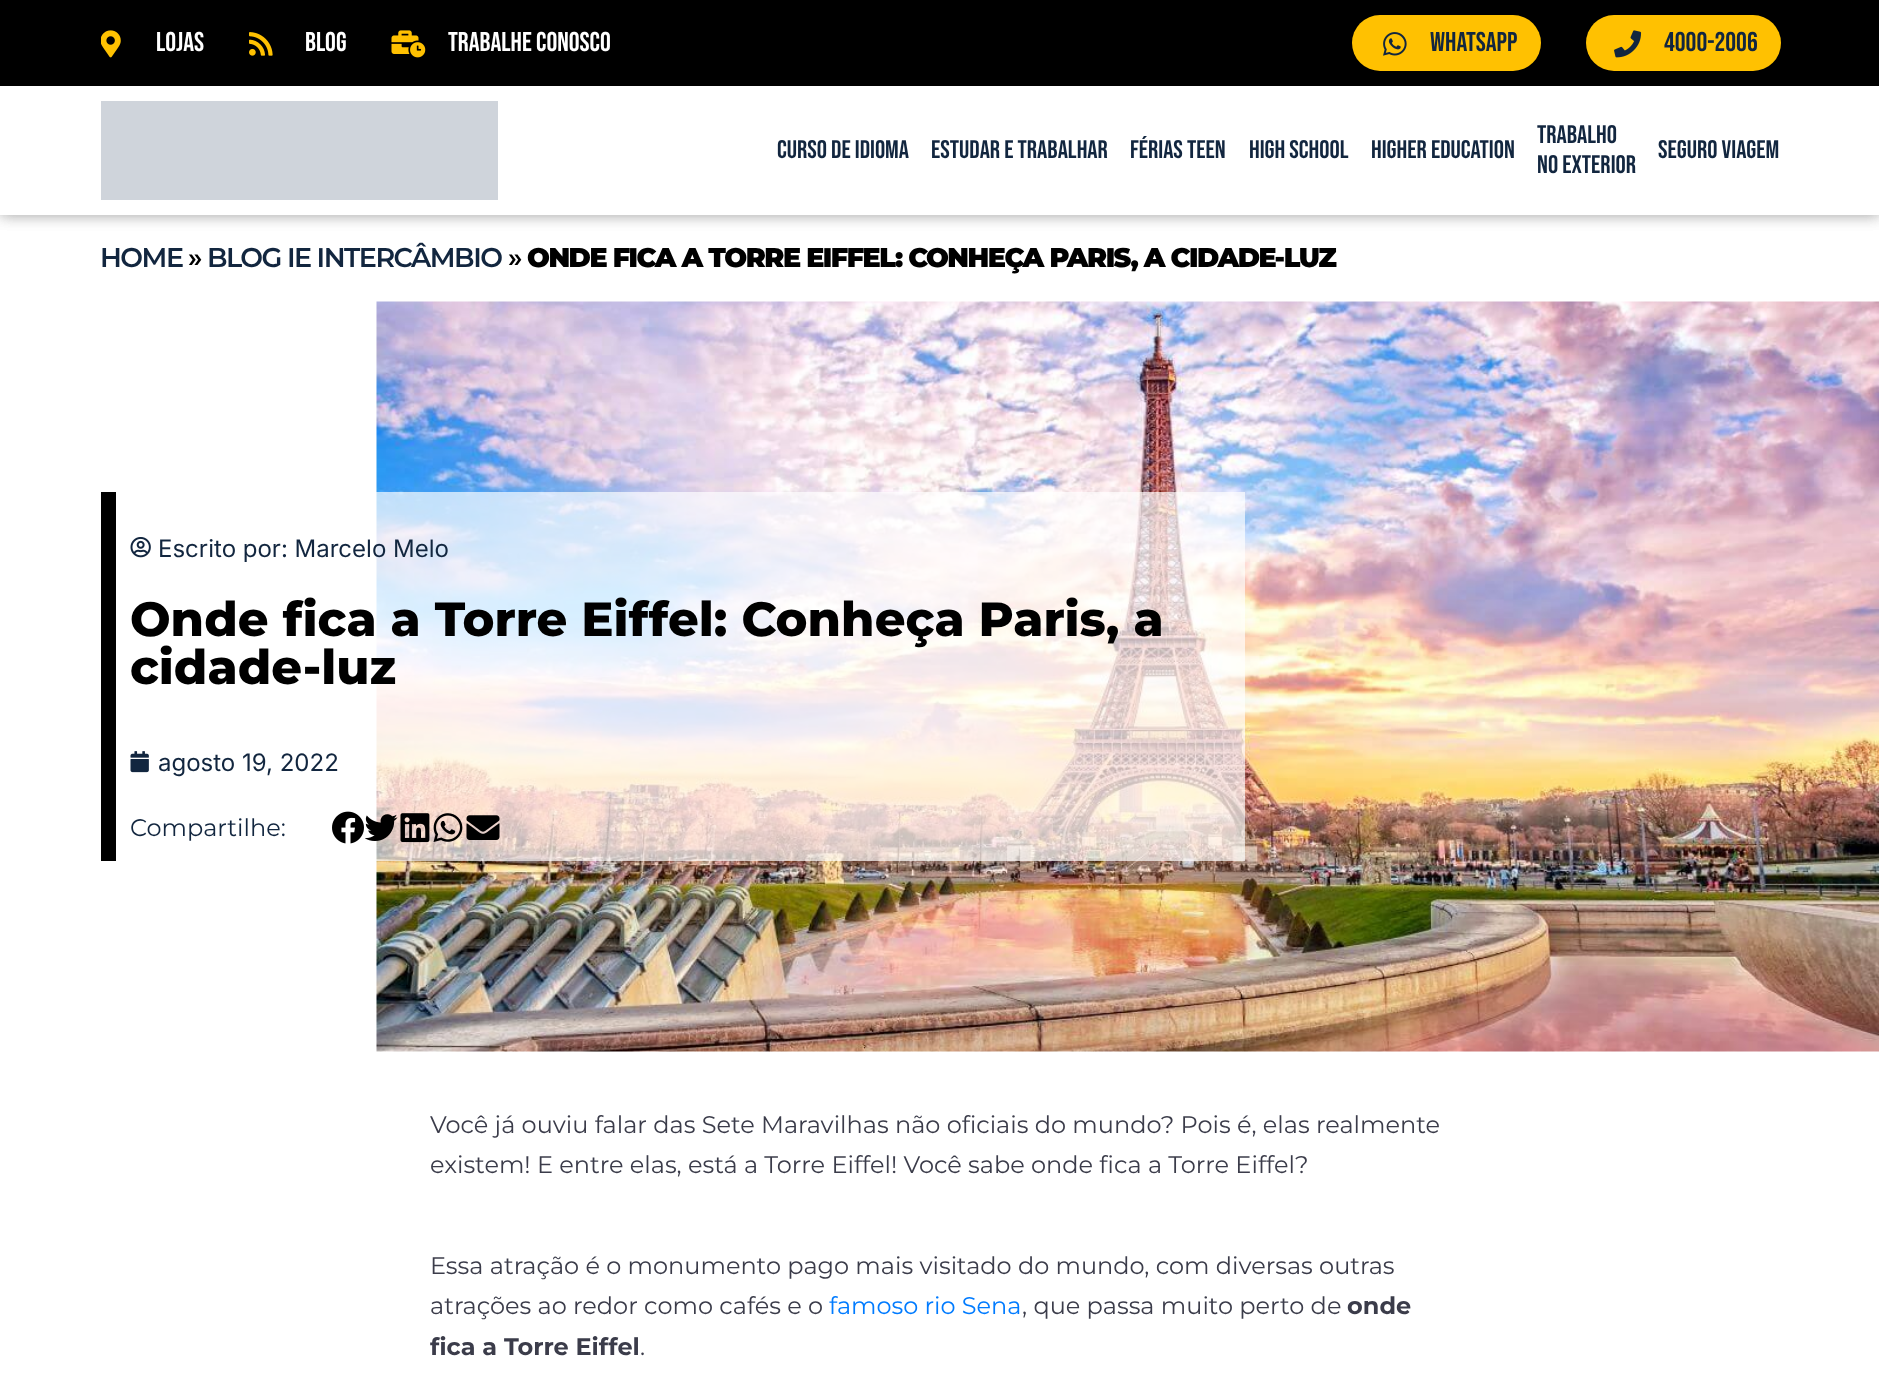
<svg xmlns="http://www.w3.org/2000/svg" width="1879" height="1397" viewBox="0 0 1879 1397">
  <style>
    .t1 { font: 27px Bebas Neue; fill: #fff; }
    .t2 { font: 27px Bebas Neue; fill: #12263f; }
    .t3 { font: 25.5px Bebas Neue; fill: #12263f; }
    .t4 { font: 600 27px Montserrat; letter-spacing: -1.5px; fill: #12263f; }
    .t5 { font: 600 27px Montserrat; letter-spacing: -1.5px; fill: #000; }
    .t6 { font: 900 27px Montserrat; letter-spacing: -1.5px; fill: #000; }
    .t7 { font: 24px Inter; fill: #12263f; }
    .t8 { font: 800 48px Montserrat; fill: #000; }
    .t9 { font: 24px Montserrat; fill: #12263f; }
    .t10 { font: 24px Montserrat; fill: #3b3c4a; }
    .t11 { font: 24px Montserrat; fill: #007bff; }
    .t12 { font: bold 24px Montserrat; fill: #3b3c4a; }
  </style>
  <rect width="100%" height="100%" fill="#fff"/>
  <rect x="0" y="0" width="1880" height="215" fill="#00000033" filter="blur(7.5px)"/>
  <rect x="0" y="0" width="1879" height="86" fill="#000"/>
  <image x="101" y="30" width="20" height="28" href="images/1.png"/>
  <text x="156" y="51" class="t1">Lojas</text>
  <image x="249" y="32" width="24" height="24" href="images/2.png"/>
  <text x="305" y="51" class="t1">Blog</text>
  <image x="391" y="30" width="35" height="28" href="images/3.png"/>
  <text x="448" y="51" class="t1">Trabalhe Conosco</text>
  <rect x="1352" y="15" width="189" height="56" rx="28" fill="#ffc101"/>
  <image x="1383" y="32" width="24" height="24" href="images/4.png"/>
  <text x="1430" y="51" class="t2">Whatsapp</text>
  <rect x="1586" y="15" width="195" height="56" rx="28" fill="#ffc101"/>
  <image x="1614" y="30" width="28" height="28" href="images/5.png"/>
  <text x="1664" y="51" class="t2">4000-2006</text>
  <rect x="0" y="86" width="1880" height="129" fill="#00000033" filter="blur(7.5px)"/>
  <rect x="0" y="86" width="1879" height="129" fill="#fff"/>
  <rect x="101" y="101" width="397" height="99" fill="#cfd4db"/>
  <text x="777" y="158" class="t3">Curso de Idioma</text>
  <text x="931" y="158" class="t3">Estudar e Trabalhar</text>
  <text x="1130" y="158" class="t3">Férias Teen</text>
  <text x="1249" y="158" class="t3">High School</text>
  <text x="1371" y="158" class="t3">Higher Education</text>
  <text x="1537" y="143" class="t3">Trabalho</text>
  <text x="1537" y="173" class="t3">no Exterior</text>
  <text x="1658" y="158" class="t3">Seguro Viagem</text>
  <text x="100" y="267" class="t4">HOME</text>
  <text x="188" y="267" class="t5">»</text>
  <text x="207" y="267" class="t4">BLOG IE INTERCÂMBIO</text>
  <text x="508" y="267" class="t5">»</text>
  <text x="527" y="267" class="t6">ONDE FICA A TORRE EIFFEL: CONHEÇA PARIS, A CIDADE-LUZ</text>
  <image x="376" y="301" width="1503" height="751" href="images/6.png"/>
  <rect x="376" y="492" width="869" height="369" fill="#ffffffb0"/>
  <rect x="101" y="492" width="15" height="369" fill="#000"/>
  <image x="130" y="537" width="21" height="21" href="images/7.png"/>
  <text x="158" y="557" class="t7">Escrito por: Marcelo Melo</text>
  <text x="130" y="636" class="t8">Onde fica a Torre Eiffel: Conheça Paris, a</text>
  <text x="130" y="684" class="t8">cidade-luz</text>
  <image x="130" y="751" width="19" height="22" href="images/8.png"/>
  <text x="158" y="771" class="t7">agosto 19, 2022</text>
  <text x="130" y="836" class="t9">Compartilhe:</text>
  <image x="332" y="811" width="32" height="33" href="images/9.png"/>
  <image x="365" y="814" width="33" height="27" href="images/10.png"/>
  <image x="400" y="813" width="30" height="30" href="images/11.png"/>
  <image x="433" y="813" width="30" height="29" href="images/12.png"/>
  <image x="466" y="815" width="34" height="25" href="images/13.png"/>
  <text x="430" y="1133" class="t10">Você já ouviu falar das Sete Maravilhas não oficiais do mundo? Pois é, elas realmente</text>
  <text x="430" y="1173" class="t10">existem! E entre elas, está a Torre Eiffel! Você sabe onde fica a Torre Eiffel?</text>
  <text x="430" y="1274" class="t10">Essa atração é o monumento pago mais visitado do mundo, com diversas outras</text>
  <text x="430" y="1314" class="t10">atrações ao redor como cafés e o</text>
  <text x="829" y="1314" class="t11">famoso rio Sena</text>
  <text x="1022" y="1314" class="t10">, que passa muito perto de</text>
  <text x="1347" y="1314" class="t12">onde</text>
  <text x="430" y="1355" class="t12">fica a Torre Eiffel</text>
  <text x="640" y="1355" class="t10">.</text>
</svg>
